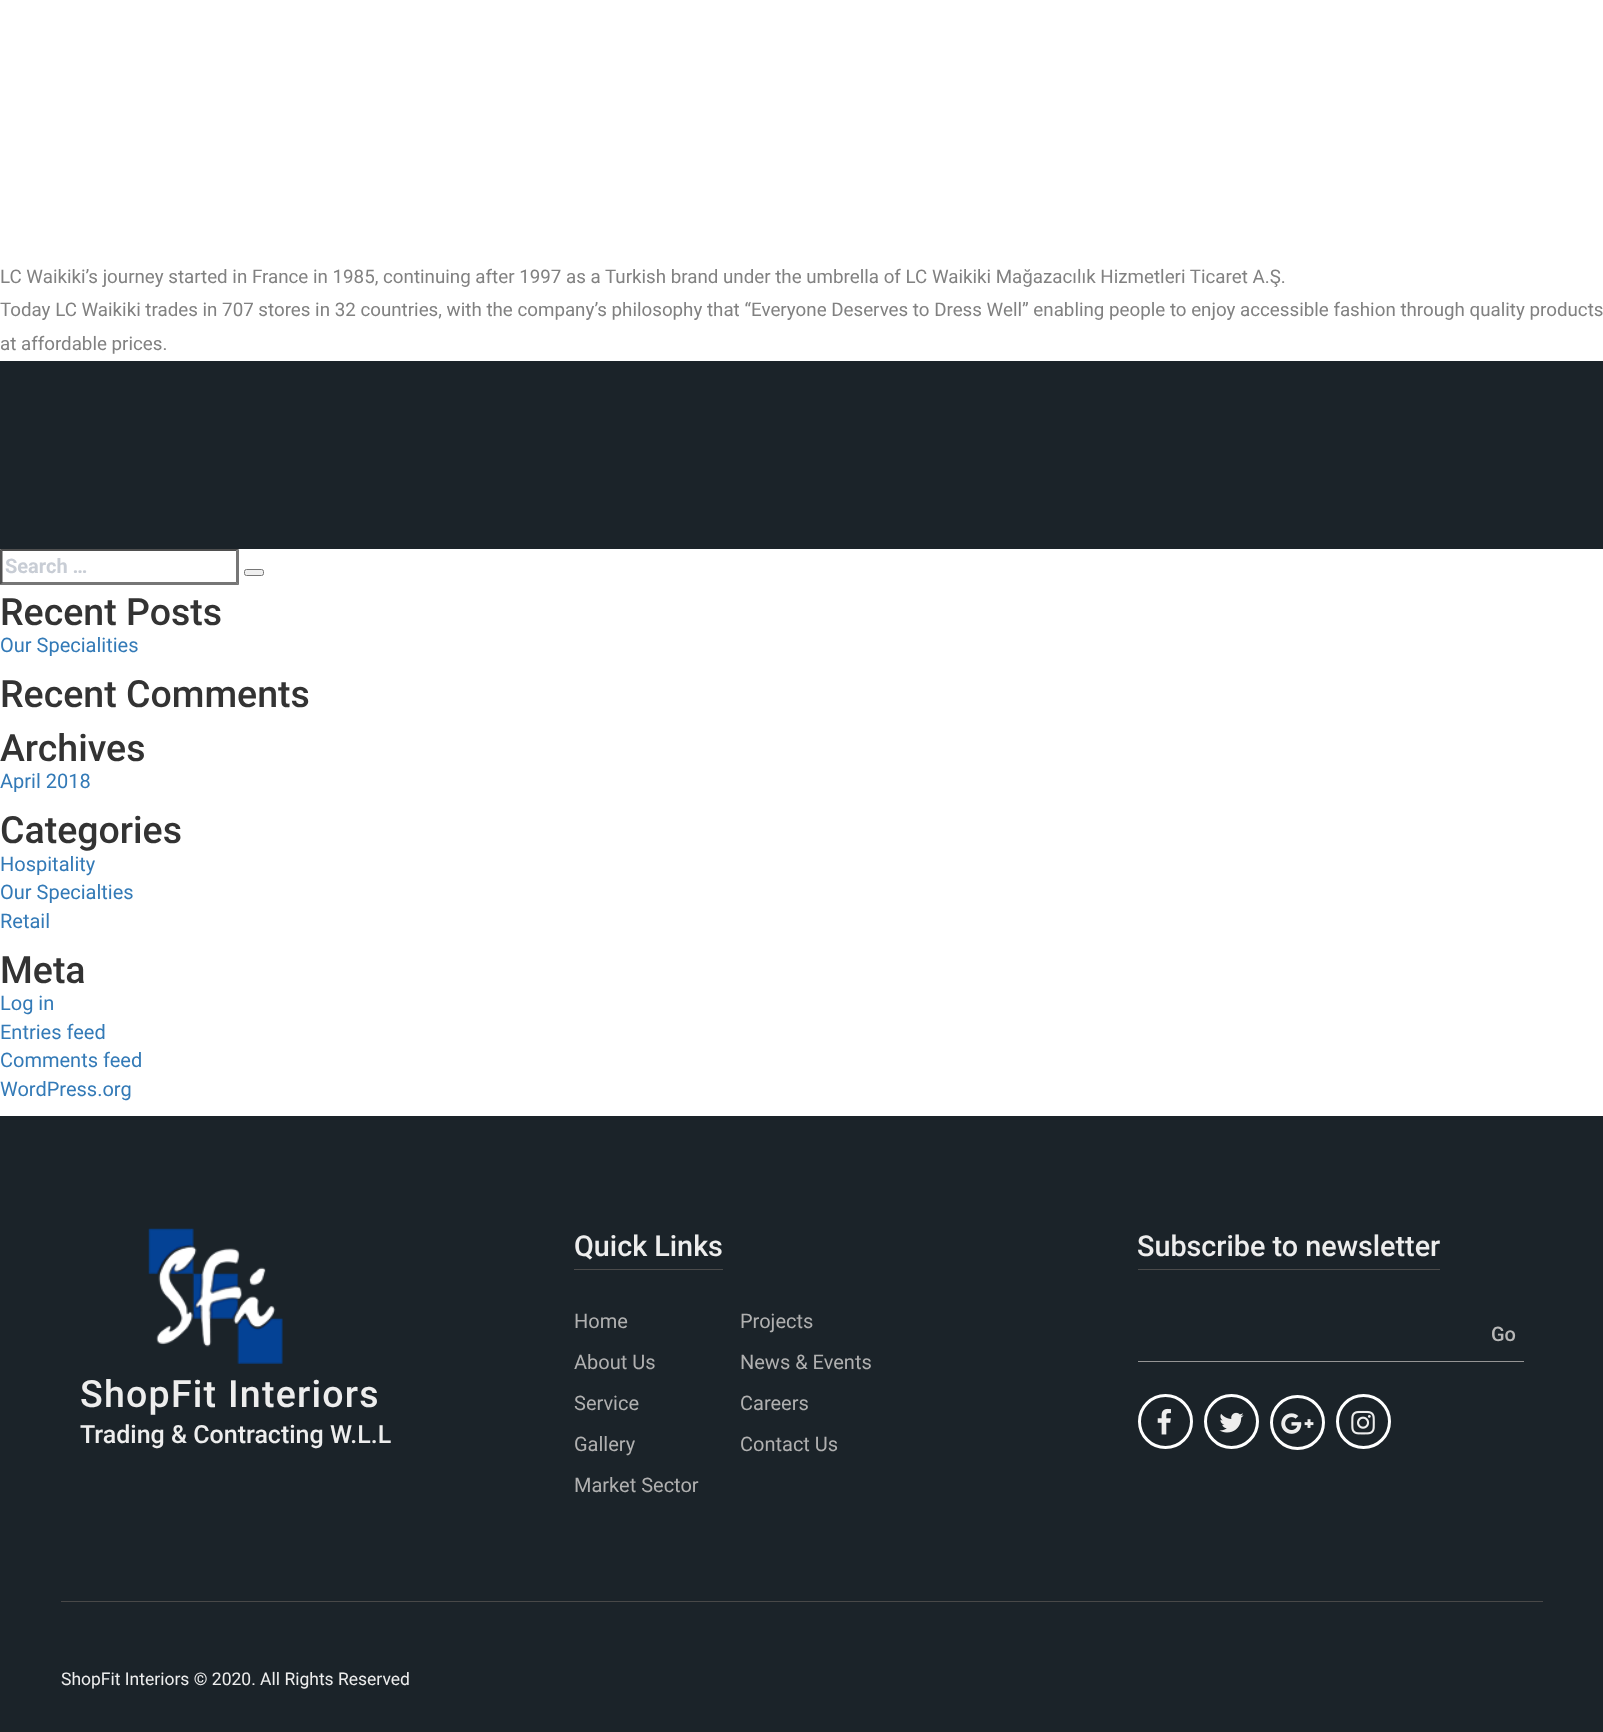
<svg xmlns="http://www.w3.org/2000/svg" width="1603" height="1732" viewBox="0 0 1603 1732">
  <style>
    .t1 { font: 18.75px Roboto; fill: #818181; }
    .t2 { font: bold 20px Roboto; fill: #c8cdd5; }
    .t3 { font: 500 37.5px Roboto; fill: #333; }
    .t4 { font: 20px Roboto; fill: #337ab7; }
    .t5 { font: 500 28.75px Roboto; fill: #ededed; }
    .t6 { font: 20px Roboto; fill: #b0b0b0; }
    .t7 { font: 500 20px Roboto; fill: #b8b8b8; }
    .t8 { font: 500 37.5px Roboto; letter-spacing: 1.25px; fill: #ededed; }
    .t9 { font: 500 25px Roboto; fill: #ededed; }
    .t10 { font: 17.5px Roboto; fill: #ededed; }
  </style>
  <rect width="100%" height="100%" fill="#fff"/>
  <text x="0" y="283" class="t1">LC Waikiki’s journey started in France in 1985, continuing after 1997 as a Turkish brand under the umbrella of LC Waikiki Mağazacılık Hizmetleri Ticaret A.Ş.</text>
  <text x="0" y="316" class="t1">Today LC Waikiki trades in 707 stores in 32 countries, with the company’s philosophy that “Everyone Deserves to Dress Well” enabling people to enjoy accessible fashion through quality products</text>
  <text x="0" y="350" class="t1">at affordable prices.</text>
  <rect x="0" y="361" width="1603" height="188" fill="#1b2329"/>
  <path d="M0 549H239L236 551H2Z" fill="#4f4f4f"/>
  <path d="M239 549V585L236 582.5V551Z" fill="#767676"/>
  <path d="M239 585H0L2 582H236Z" fill="#767676"/>
  <path d="M0 585V549L2.5 551V582.5Z" fill="#4f4f4f"/>
  <text x="5" y="573" class="t2">Search …</text>
  <rect x="244.5" y="569.5" width="19" height="6" rx="2" fill="#efefef" stroke="#767676"/>
  <text x="0" y="625" class="t3">Recent Posts</text>
  <text x="0" y="652" class="t4">Our Specialities</text>
  <text x="0" y="707" class="t3">Recent Comments</text>
  <text x="0" y="761" class="t3">Archives</text>
  <text x="0" y="788" class="t4">April 2018</text>
  <text x="0" y="843" class="t3">Categories</text>
  <text x="0" y="871" class="t4">Hospitality</text>
  <text x="0" y="899" class="t4">Our Specialties</text>
  <text x="0" y="928" class="t4">Retail</text>
  <text x="0" y="983" class="t3">Meta</text>
  <text x="0" y="1010" class="t4">Log in</text>
  <text x="0" y="1039" class="t4">Entries feed</text>
  <text x="0" y="1067" class="t4">Comments feed</text>
  <text x="0" y="1096" class="t4">WordPress.org</text>
  <rect x="0" y="1116" width="1603" height="616" fill="#1b2329"/>
  <rect x="574" y="1269" width="149" height="1" fill="#4b4b4b"/>
  <text x="574" y="1256" class="t5">Quick Links</text>
  <text x="574" y="1328" class="t6">Home</text>
  <text x="574" y="1369" class="t6">About Us</text>
  <text x="574" y="1410" class="t6">Service</text>
  <text x="574" y="1451" class="t6">Gallery</text>
  <text x="574" y="1492" class="t6">Market Sector</text>
  <text x="740" y="1328" class="t6">Projects</text>
  <text x="740" y="1369" class="t6">News &amp; Events</text>
  <text x="740" y="1410" class="t6">Careers</text>
  <text x="740" y="1451" class="t6">Contact Us</text>
  <rect x="1138" y="1269" width="302" height="1" fill="#4b4b4b"/>
  <text x="1137" y="1256" class="t5">Subscribe to newsletter</text>
  <text x="1491" y="1341" class="t7">Go</text>
  <rect x="1138" y="1361" width="386" height="1" fill="#959595"/>
  <circle cx="1165.5" cy="1421.5" r="26" fill="none" stroke="#fff" stroke-width="3"/>
  <image x="1157" y="1408" width="14" height="27" href="images/1.png"/>
  <circle cx="1231.5" cy="1421.5" r="26" fill="none" stroke="#fff" stroke-width="3"/>
  <image x="1219" y="1412" width="25" height="21" href="images/2.png"/>
  <circle cx="1297.5" cy="1422.5" r="26" fill="none" stroke="#fff" stroke-width="3"/>
  <image x="1281" y="1413" width="33" height="21" href="images/3.png"/>
  <circle cx="1363.5" cy="1421.5" r="26" fill="none" stroke="#fff" stroke-width="3"/>
  <image x="1351" y="1410" width="24" height="25" href="images/4.png"/>
  <image x="148" y="1228" width="135" height="136" href="images/5.png"/>
  <text x="80" y="1407" class="t8">ShopFit Interiors</text>
  <text x="80" y="1443" class="t9">Trading &amp; Contracting W.L.L</text>
  <rect x="61" y="1601" width="1482" height="1" fill="#484848"/>
  <text x="61" y="1685" class="t10">ShopFit Interiors © 2020. All Rights Reserved</text>
</svg>
